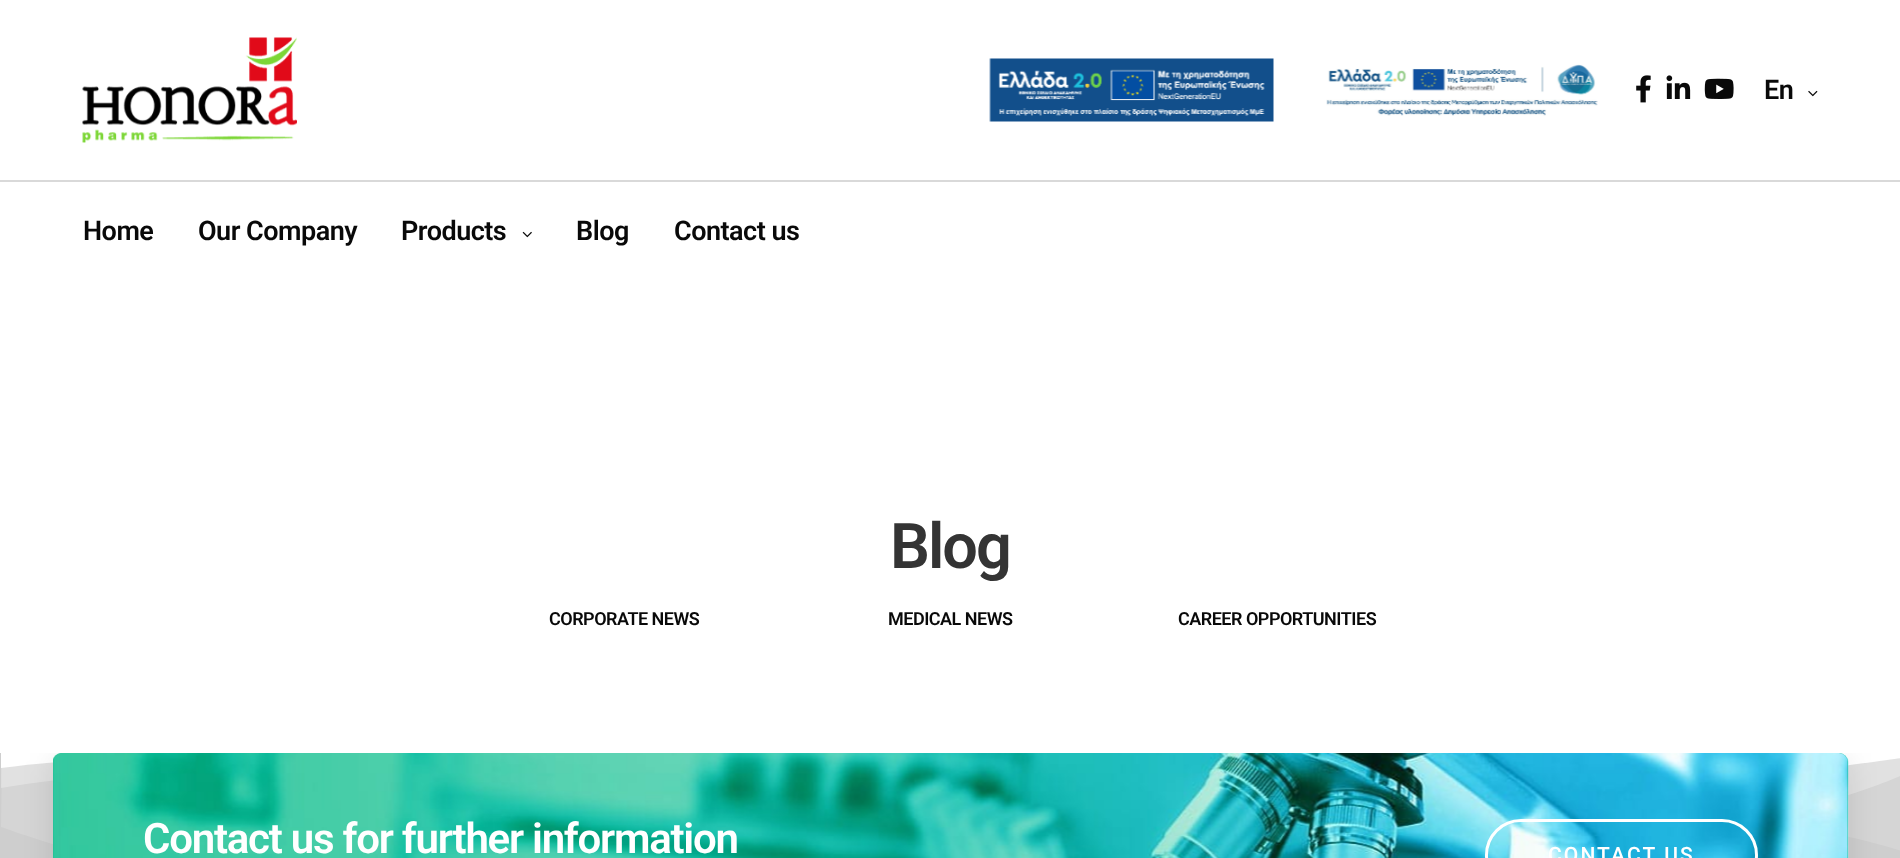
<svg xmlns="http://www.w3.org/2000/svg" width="1900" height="858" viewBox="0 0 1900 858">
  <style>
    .t1 { font: 600 27px Roboto; letter-spacing: -0.5px; fill: #090909; }
    .t2 { font: 600 63px Roboto; letter-spacing: -2px; fill: #343434; }
    .t3 { font: 600 18px Roboto; letter-spacing: -0.5px; fill: #090909; }
    .t4 { font: 600 42px Roboto; letter-spacing: -1.25px; fill: #fff; }
    .t5 { font: 500 21px Roboto; letter-spacing: 2.1px; fill: #fff; }
  </style>
  <rect width="100%" height="100%" fill="#cecece"/>
  <path d="M1 768C143 750 379 742 743 784C1300 848 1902 758 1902 758L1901 753H1Z" fill="#fff"/>
  <path d="M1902 753H2L1 827C1 827 603 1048 1160 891C1524 788 1760 807 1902 851Z" fill="#ffffff26"/>
  <path d="M1 788C143 764 379 753 743 810C1579 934 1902 775 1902 775L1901 753H1Z" fill="#ffffff4d"/>
  <rect x="53" y="759" width="1795" height="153" rx="9" fill="#0000001a" filter="blur(15px)"/>
  <rect x="0" y="0" width="1900" height="753" fill="#fff"/>
  <image x="82" y="37" width="215" height="106" href="images/1.png"/>
  <image x="989" y="58" width="285" height="64" href="images/2.png"/>
  <image x="1326" y="64" width="272" height="52" href="images/3.png"/>
  <image x="1636" y="75" width="15" height="28" href="images/4.png"/>
  <image x="1666" y="75" width="25" height="24" href="images/5.png"/>
  <image x="1704" y="78" width="30" height="21" href="images/6.png"/>
  <text x="1764" y="99" class="t1">En</text>
  <image x="1808" y="90" width="10" height="7" href="images/7.png"/>
  <rect x="0" y="180" width="1900" height="2" fill="#d9d9d9"/>
  <text x="83" y="240" class="t1">Home</text>
  <text x="198" y="240" class="t1">Our Company</text>
  <text x="401" y="240" class="t1">Products</text>
  <image x="522" y="231" width="10" height="7" href="images/8.png"/>
  <text x="576" y="240" class="t1">Blog</text>
  <text x="674" y="240" class="t1">Contact us</text>
  <text x="890" y="568" class="t2">Blog</text>
  <text x="549" y="625" class="t3">CORPORATE NEWS</text>
  <text x="888" y="625" class="t3">MEDICAL NEWS</text>
  <text x="1178" y="625" class="t3">CAREER OPPORTUNITIES</text>
  <rect x="53" y="753" width="1795" height="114" rx="9" fill="#02ba88"/>
  <image x="53" y="753" width="1796" height="105" href="images/9.png"/>
  <text x="143" y="853" class="t4">Contact us for further information</text>
  <rect x="1486.5" y="820.5" width="270" height="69" rx="34.5" fill="none" stroke="#fff" stroke-width="3"/>
  <text x="1548" y="862" class="t5">CONTACT US</text>
</svg>
